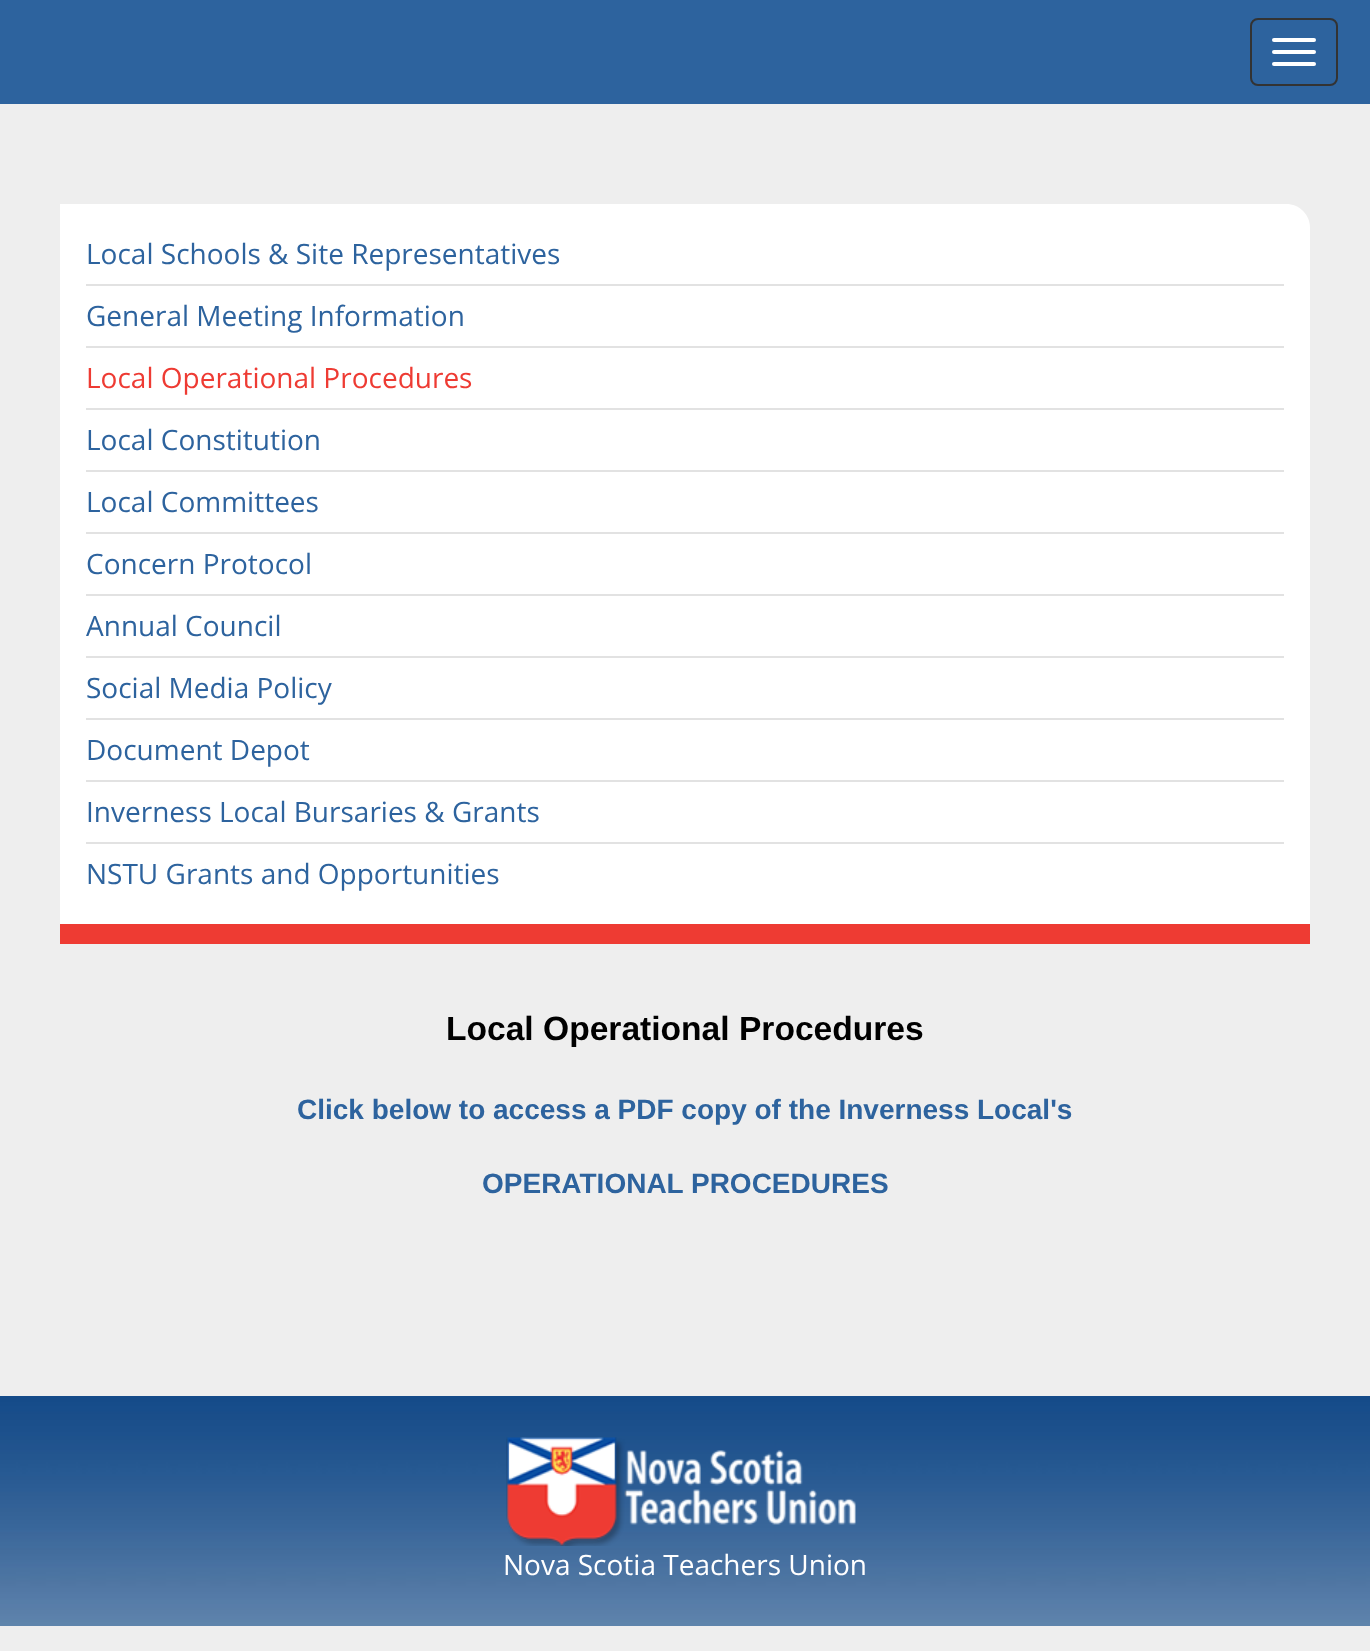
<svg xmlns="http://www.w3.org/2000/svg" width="1370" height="1651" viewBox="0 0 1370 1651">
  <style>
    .t1 { font: 28px Open Sans; fill: #2d639e; }
    .t2 { font: 28px Open Sans; fill: #ee3b33; }
    .t3 { font: bold 33.6px Liberation Sans; fill: #000; }
    .t4 { font: bold 28px Liberation Sans; fill: #2d639e; }
    .t5 { font: 28px Open Sans; fill: #fff; }
  </style>
  <rect width="100%" height="100%" fill="#eee"/>
  <rect x="0" y="0" width="1370" height="104" fill="#2d639e"/>
  <rect x="1251" y="19" width="86" height="66" rx="7" fill="none" stroke="#333" stroke-width="2"/>
  <rect x="1272" y="38" width="44" height="4" rx="2" fill="#fff"/>
  <rect x="1272" y="50" width="44" height="4" rx="2" fill="#fff"/>
  <rect x="1272" y="62" width="44" height="4" rx="2" fill="#fff"/>
  <path d="M60 204H1286C1299.5 204 1310 214.5 1310 228V944H60Z" fill="#fff"/>
  <rect x="60" y="924" width="1250" height="20" fill="#ee3b33"/>
  <rect x="86" y="284" width="1198" height="2" fill="#e2e2e2"/>
  <text x="86" y="264" class="t1">Local Schools &amp; Site Representatives</text>
  <rect x="86" y="346" width="1198" height="2" fill="#e2e2e2"/>
  <text x="86" y="326" class="t1">General Meeting Information</text>
  <rect x="86" y="408" width="1198" height="2" fill="#e2e2e2"/>
  <text x="86" y="388" class="t2">Local Operational Procedures</text>
  <rect x="86" y="470" width="1198" height="2" fill="#e2e2e2"/>
  <text x="86" y="450" class="t1">Local Constitution</text>
  <rect x="86" y="532" width="1198" height="2" fill="#e2e2e2"/>
  <text x="86" y="512" class="t1">Local Committees</text>
  <rect x="86" y="594" width="1198" height="2" fill="#e2e2e2"/>
  <text x="86" y="574" class="t1">Concern Protocol</text>
  <rect x="86" y="656" width="1198" height="2" fill="#e2e2e2"/>
  <text x="86" y="636" class="t1">Annual Council</text>
  <rect x="86" y="718" width="1198" height="2" fill="#e2e2e2"/>
  <text x="86" y="698" class="t1">Social Media Policy</text>
  <rect x="86" y="780" width="1198" height="2" fill="#e2e2e2"/>
  <text x="86" y="760" class="t1">Document Depot</text>
  <rect x="86" y="842" width="1198" height="2" fill="#e2e2e2"/>
  <text x="86" y="822" class="t1">Inverness Local Bursaries &amp; Grants</text>
  <text x="86" y="884" class="t1">NSTU Grants and Opportunities</text>
  <text x="446" y="1040" class="t3">Local Operational Procedures</text>
  <text x="297" y="1119" class="t4">Click below to access a PDF copy of the Inverness Local's</text>
  <text x="482" y="1193" class="t4">OPERATIONAL PROCEDURES</text>
  <image x="0" y="1396" width="1370" height="230" href="images/1.png"/>
  <image x="506" y="1437" width="350" height="109" href="images/2.png"/>
  <text x="503" y="1575" class="t5">Nova Scotia Teachers Union</text>
</svg>
